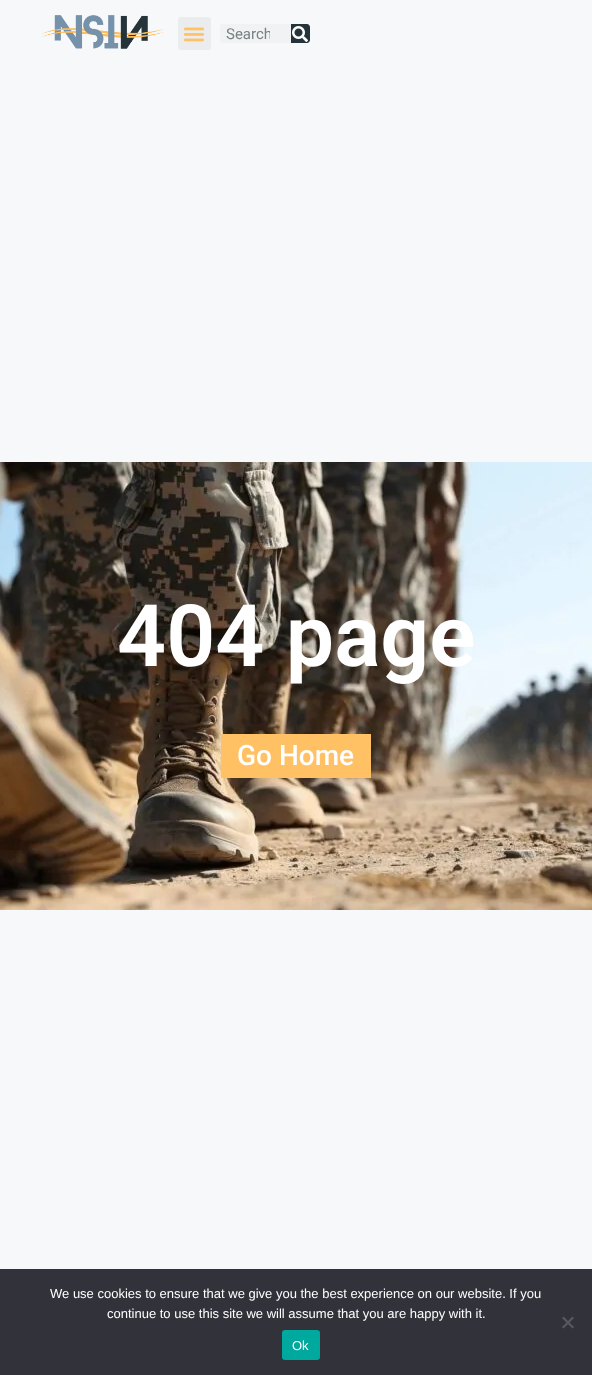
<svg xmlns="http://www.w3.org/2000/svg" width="592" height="1375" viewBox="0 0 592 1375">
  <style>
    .t1 { font: 15px Roboto; fill: #778083; }
    .t2 { font: 600 86px Roboto; fill: #fff; }
    .t3 { font: 500 28px Roboto; fill: #fff; }
    .t4 { font: 13px Liberation Sans; fill: #fff; }
  </style>
  <defs>
    <clipPath id="clip1"><rect x="226" y="25" width="44" height="18"/></clipPath>
  </defs>
  <rect width="100%" height="100%" fill="#f7f8f9"/>
  <image x="42" y="15" width="122" height="34" href="images/1.png"/>
  <rect x="178" y="17" width="33" height="33" rx="3" fill="#ebeced"/>
  <image x="184" y="27" width="20" height="15" href="images/2.png"/>
  <rect x="220" y="24" width="90" height="19" rx="3" fill="#f1f2f3"/>
  <g clip-path="url(#clip1)">
    <text x="226" y="39" class="t1">Search</text>
  </g>
  <path d="M291 24H307C308.5 24 310 25.5 310 27V40C310 41.5 308.5 43 307 43H291Z" fill="#253439"/>
  <image x="292" y="26" width="16" height="16" href="images/3.png"/>
  <image x="0" y="462" width="592" height="448" href="images/4.png"/>
  <text x="117" y="666" class="t2">404 page</text>
  <rect x="221" y="734" width="150" height="44" fill="#ffc163"/>
  <text x="237" y="765" class="t3">Go Home</text>
  <rect x="0" y="1269" width="592" height="106" fill="#32323a"/>
  <text x="50" y="1298" class="t4">We use cookies to ensure that we give you the best experience on our website. If you</text>
  <text x="107" y="1318" class="t4">continue to use this site we will assume that you are happy with it.</text>
  <path d="M572.5 1316.5L574 1318L563.5 1328.5L562 1327Z" fill="#59595d"/>
  <path d="M562 1318L563.5 1316.5L574 1327L572.5 1328.5Z" fill="#59595d"/>
  <rect x="282" y="1330" width="38" height="30" rx="3" fill="#00a99d"/>
  <text x="292" y="1350" class="t4">Ok</text>
</svg>
